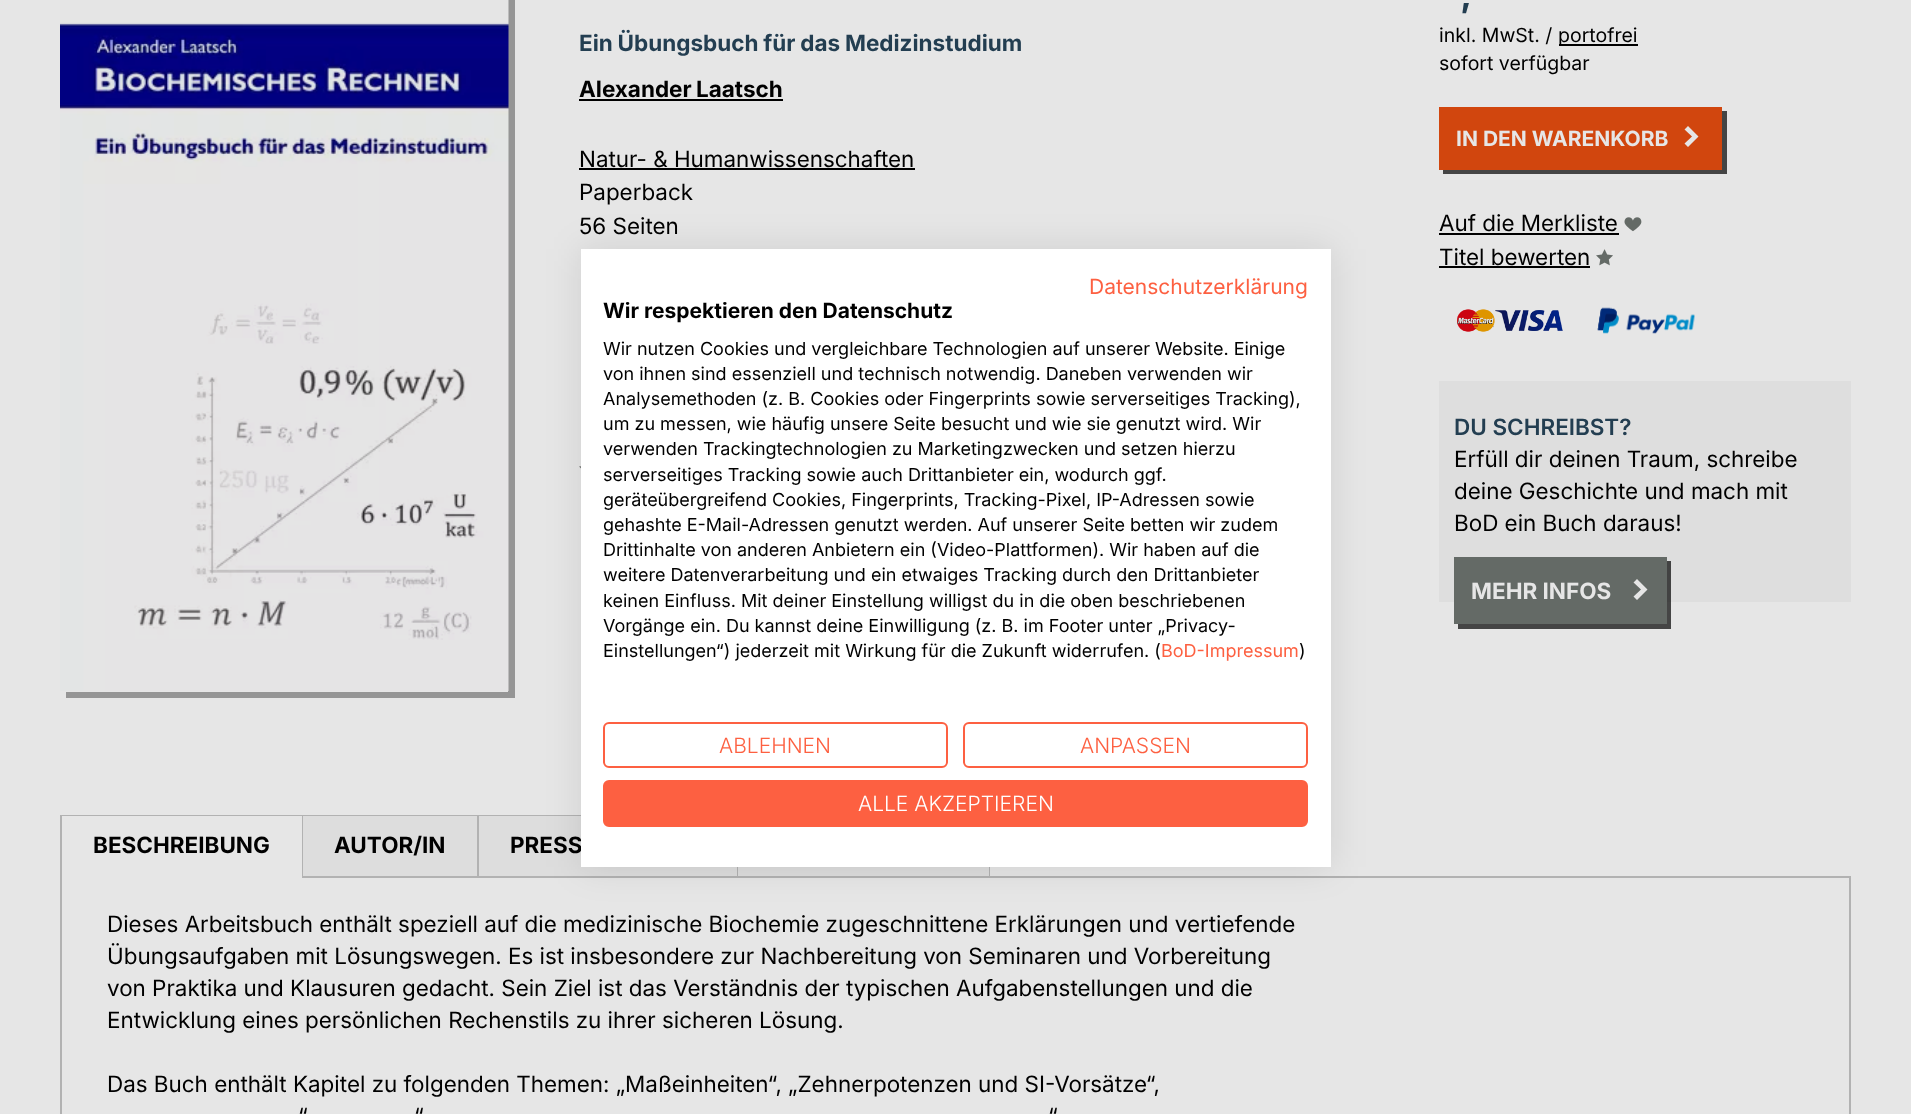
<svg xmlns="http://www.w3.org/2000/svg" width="1911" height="1114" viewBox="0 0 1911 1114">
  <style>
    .t1 { font: bold 22.5px 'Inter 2'; fill: #233e51; }
    .t2 { font: bold 22.5px 'Inter 2'; fill: #000; }
    .t3 { font: 22.5px 'Inter 2'; fill: #000; }
    .t4 { font: bold 36px Inter; fill: #233e51; }
    .t5 { font: 19.5px Inter; fill: #000; }
    .t6 { font: bold 21px 'Inter 2'; fill: #e6e6e6; }
    .t7 { font: 600 22.5px Inter; fill: #233e51; }
    .t8 { font: bold 22.5px 'Inter 2'; fill: #e6e6e6; }
    .t9 { font: 21px Inter; fill: #fd6041; }
    .t10 { font: bold 21px 'Inter 2'; fill: #000; }
    .t11 { font: 18px Inter; fill: #000; }
    .t12 { font: 18px Inter; fill: #fd6041; }
    .t13 { font: 300 21px Inter; fill: #fd6041; }
    .t14 { font: 300 21px Inter; fill: #fff; }
  </style>
  <rect width="100%" height="100%" fill="#e6e6e6"/>
  <path d="M66 692V698H515V-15H508V692Z" fill="#959595"/>
  <image x="60" y="0" width="449" height="691" href="images/1.png"/>
  <text x="579" y="51" word-spacing="-0.5" class="t1">Ein Übungsbuch für das Medizinstudium</text>
  <text x="579" y="97" word-spacing="-1" class="t2">Alexander Laatsch</text>
  <rect x="579" y="99" width="204" height="2" fill="#000"/>
  <text x="579" y="167" class="t3">Natur- &amp; Humanwissenschaften</text>
  <rect x="579" y="168" width="336" height="2" fill="#000"/>
  <text x="579" y="200" class="t3">Paperback</text>
  <text x="579" y="234" class="t3">56 Seiten</text>
  <image x="579" y="466" width="2" height="3" href="images/2.png"/>
  <text x="1461" y="7" class="t4">,</text>
  <text x="1439" y="42" class="t5">inkl. MwSt. /</text>
  <rect x="1559" y="44" width="79" height="2" fill="#000"/>
  <text x="1558" y="42" class="t5">portofrei</text>
  <text x="1439" y="70" class="t5">sofort verfügbar</text>
  <path d="M1443 170V174H1727V111H1722V170Z" fill="#454545"/>
  <rect x="1439" y="107" width="283" height="63" fill="#d1460e"/>
  <text x="1456" y="146" class="t6">IN DEN WARENKORB</text>
  <path d="M1692 136.5L1684.5 143.5L1688 147L1698.5 136.5L1688 126L1684.5 129.5Z" fill="#e6e6e6"/>
  <text x="1439" y="231" class="t3">Auf die Merkliste</text>
  <rect x="1439" y="233" width="180" height="2" fill="#000"/>
  <image x="1624" y="217" width="18" height="15" href="images/3.png"/>
  <text x="1439" y="265" class="t3">Titel bewerten</text>
  <rect x="1439" y="266" width="151" height="2" fill="#000"/>
  <image x="1596" y="249" width="17" height="17" href="images/4.png"/>
  <image x="1457" y="309" width="106" height="23" href="images/5.png"/>
  <image x="1597" y="307" width="98" height="27" href="images/6.png"/>
  <rect x="1439" y="381" width="412" height="221" fill="#dedede"/>
  <text x="1454" y="435" class="t7">DU SCHREIBST?</text>
  <text x="1454" y="467" class="t3">Erfüll dir deinen Traum, schreibe</text>
  <text x="1454" y="499" class="t3">deine Geschichte und mach mit</text>
  <text x="1454" y="531" class="t3">BoD ein Buch daraus!</text>
  <path d="M1458 624V629H1671V561H1666V624Z" fill="#000000b3"/>
  <rect x="1454" y="557" width="213" height="67" fill="#646a66"/>
  <text x="1471" y="599" class="t8">MEHR INFOS</text>
  <path d="M1641 589.5L1633.5 596.5L1637 600L1647.5 589.5L1637 579L1633.5 582.5Z" fill="#e6e6e6"/>
  <rect x="60" y="815" width="521" height="1" fill="#b2b2b2"/>
  <rect x="60" y="815" width="2" height="64" fill="#b2b2b2"/>
  <rect x="61" y="877" width="1789" height="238" fill="none" stroke="#b2b2b2" stroke-width="2"/>
  <rect x="62" y="876" width="240" height="2" fill="#e6e6e6"/>
  <text x="93" y="853" class="t2">BESCHREIBUNG</text>
  <rect x="302" y="815" width="2" height="63" fill="#b2b2b2"/>
  <rect x="303" y="816" width="174" height="60" fill="#ddd"/>
  <text x="334" y="853" class="t2">AUTOR/IN</text>
  <rect x="477" y="815" width="2" height="63" fill="#b2b2b2"/>
  <rect x="479" y="816" width="258" height="60" fill="#ddd"/>
  <text x="510" y="853" class="t2">PRESS</text>
  <rect x="738" y="816" width="251" height="61" fill="none" stroke="#b2b2b2" stroke-width="2"/>
  <rect x="738" y="867" width="251" height="9" fill="#ddd"/>
  <text x="107" y="932" class="t3">Dieses Arbeitsbuch enthält speziell auf die medizinische Biochemie zugeschnittene Erklärungen und vertiefende</text>
  <text x="107" y="964" class="t3">Übungsaufgaben mit Lösungswegen. Es ist insbesondere zur Nachbereitung von Seminaren und Vorbereitung</text>
  <text x="107" y="996" class="t3">von Praktika und Klausuren gedacht. Sein Ziel ist das Verständnis der typischen Aufgabenstellungen und die</text>
  <text x="107" y="1028" class="t3">Entwicklung eines persönlichen Rechenstils zu ihrer sicheren Lösung.</text>
  <text x="107" y="1092" class="t3">Das Buch enthält Kapitel zu folgenden Themen: „Maßeinheiten“, „Zehnerpotenzen und SI-Vorsätze“,</text>
  <text x="298" y="1124" class="t3">“</text>
  <text x="414" y="1124" class="t3">“</text>
  <text x="1048" y="1124" class="t3">“</text>
  <rect x="581" y="249" width="750" height="618" fill="#0000001a" filter="blur(18px)"/>
  <rect x="581" y="249" width="750" height="618" fill="#fff"/>
  <text x="1089" y="294" class="t9">Datenschutzerklärung</text>
  <text x="603" y="318" class="t10">Wir respektieren den Datenschutz</text>
  <text x="603" y="355" class="t11">Wir nutzen Cookies und vergleichbare Technologien auf unserer Website. Einige</text>
  <text x="603" y="380" class="t11">von ihnen sind essenziell und technisch notwendig. Daneben verwenden wir</text>
  <text x="603" y="405" class="t11">Analysemethoden (z. B. Cookies oder Fingerprints sowie serverseitiges Tracking),</text>
  <text x="603" y="430" class="t11">um zu messen, wie häufig unsere Seite besucht und wie sie genutzt wird. Wir</text>
  <text x="603" y="455" class="t11">verwenden Trackingtechnologien zu Marketingzwecken und setzen hierzu</text>
  <text x="603" y="481" class="t11">serverseitiges Tracking sowie auch Drittanbieter ein, wodurch ggf.</text>
  <text x="603" y="506" class="t11">geräteübergreifend Cookies, Fingerprints, Tracking-Pixel, IP-Adressen sowie</text>
  <text x="603" y="531" class="t11">gehashte E-Mail-Adressen genutzt werden. Auf unserer Seite betten wir zudem</text>
  <text x="603" y="556" class="t11">Drittinhalte von anderen Anbietern ein (Video-Plattformen). Wir haben auf die</text>
  <text x="603" y="581" class="t11">weitere Datenverarbeitung und ein etwaiges Tracking durch den Drittanbieter</text>
  <text x="603" y="607" class="t11">keinen Einfluss. Mit deiner Einstellung willigst du in die oben beschriebenen</text>
  <text x="603" y="632" class="t11">Vorgänge ein. Du kannst deine Einwilligung (z. B. im Footer unter „Privacy-</text>
  <text x="603" y="657" class="t11">Einstellungen“) jederzeit mit Wirkung für die Zukunft widerrufen. (</text>
  <text x="1161" y="657" class="t12">BoD-Impressum</text>
  <text x="1299" y="657" class="t11">)</text>
  <rect x="604" y="723" width="343" height="44" rx="5" fill="none" stroke="#fd6041" stroke-width="2"/>
  <text x="719" y="753" class="t13">ABLEHNEN</text>
  <rect x="964" y="723" width="343" height="44" rx="5" fill="none" stroke="#fd6041" stroke-width="2"/>
  <text x="1080" y="753" class="t13">ANPASSEN</text>
  <rect x="604" y="781" width="703" height="45" rx="5" fill="#fd6041" stroke="#fd6041" stroke-width="2"/>
  <text x="858" y="811" class="t14">ALLE AKZEPTIEREN</text>
</svg>
